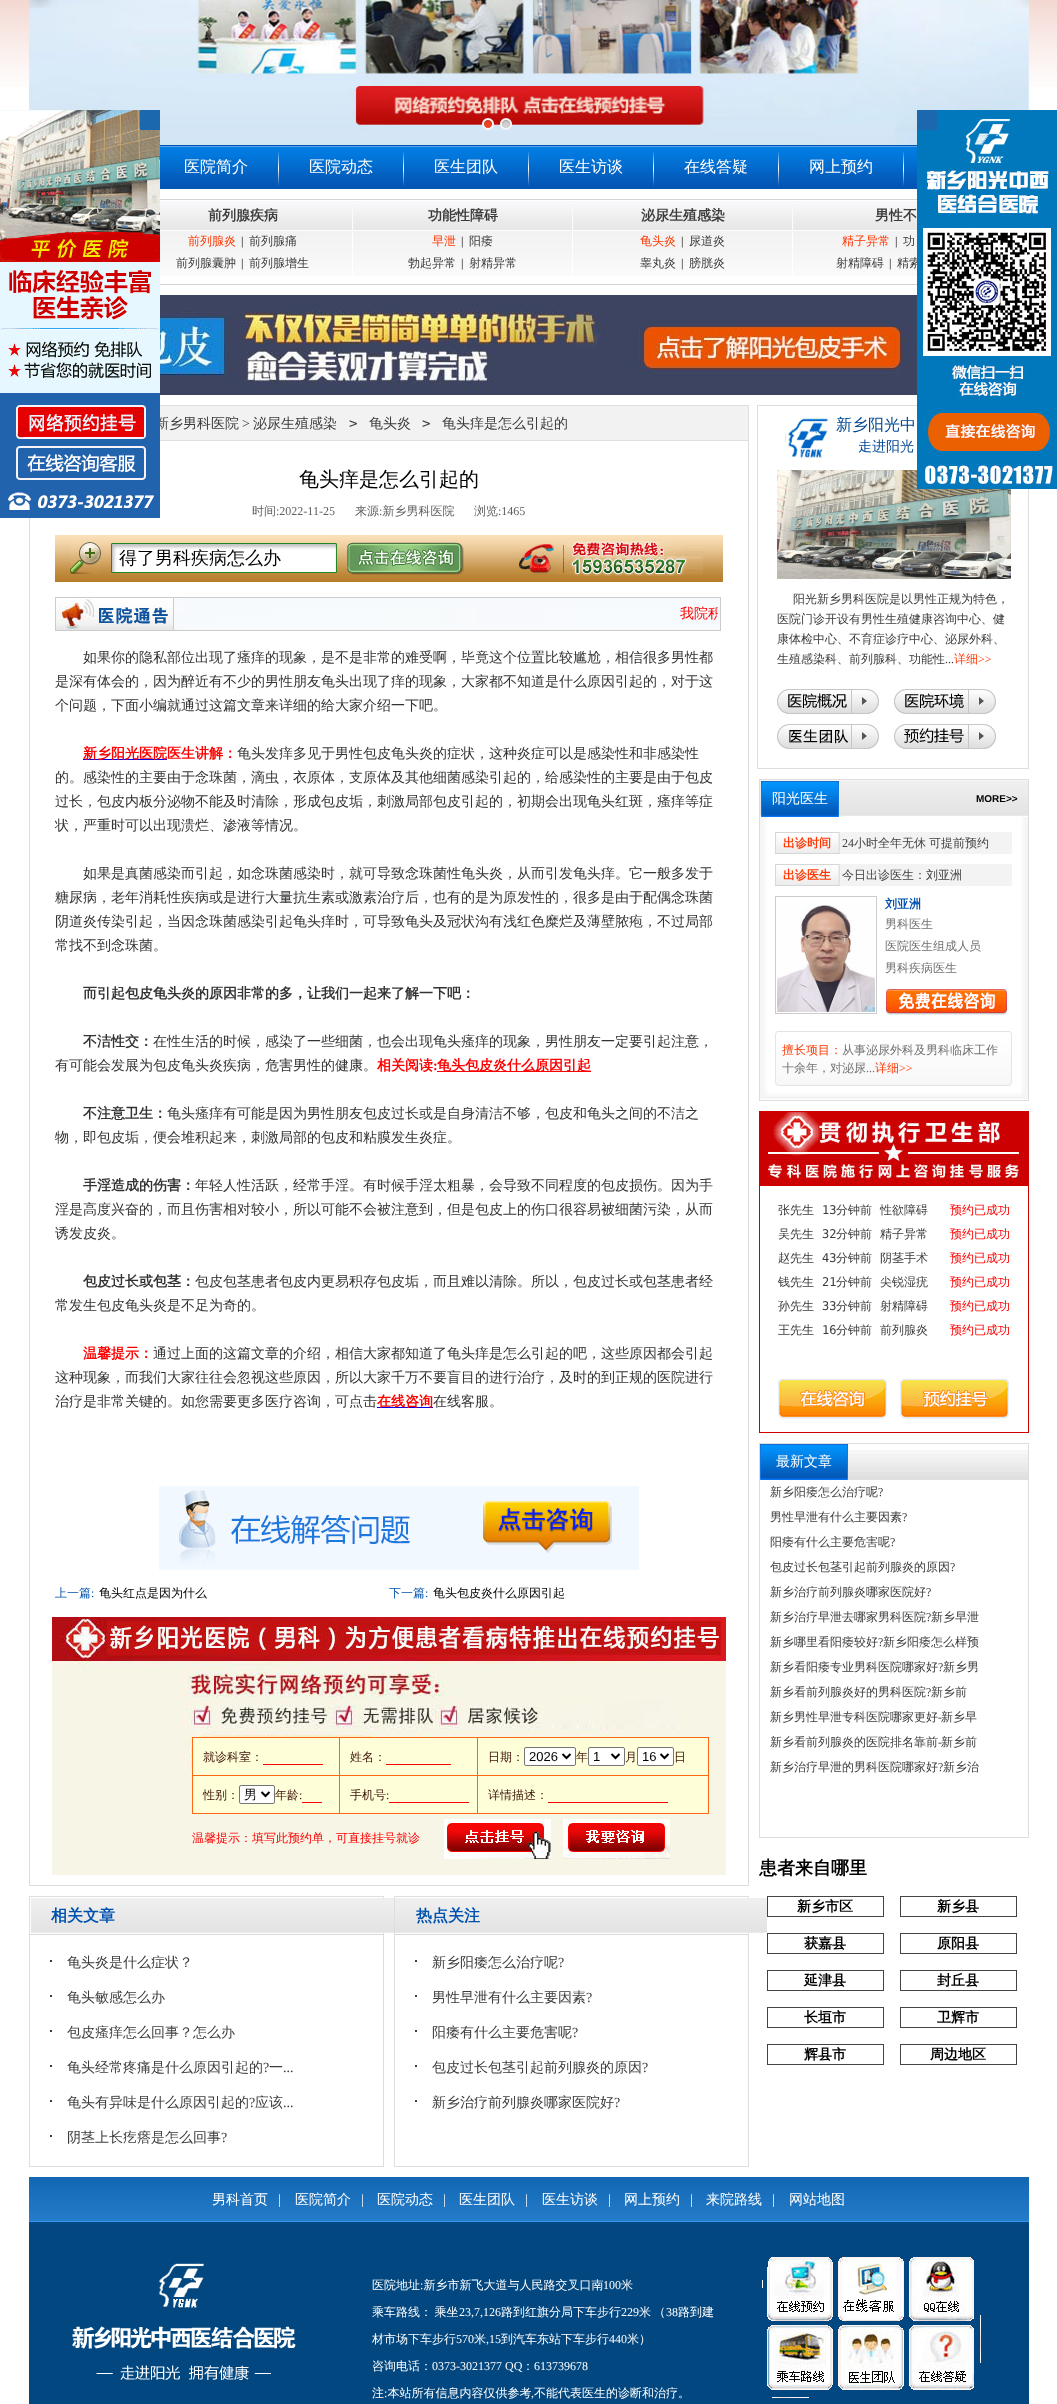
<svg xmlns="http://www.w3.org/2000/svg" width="1057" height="2404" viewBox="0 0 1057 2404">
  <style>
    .t1 { font: 500 16px WenQuanYi Zen Hei; fill: #fff; }
    .t2 { font: bold 14px WenQuanYi Zen Hei; fill: #3b3b3b; }
    .t3 { font: 500 12px WenQuanYi Zen Hei; fill: #ff3803; }
    .t4 { font: 12px Liberation Serif; fill: #000; }
    .t5 { font: 500 12px WenQuanYi Zen Hei; fill: #3b3b3b; }
    .t6 { font: 500 14px WenQuanYi Zen Hei; fill: #3b3b3b; }
    .t7 { font: 14px Liberation Serif; fill: #3b3b3b; }
    .t8 { font: 14px DejaVu Sans Mono; fill: #3b3b3b; }
    .t9 { font: 500 20px WenQuanYi Zen Hei; fill: #000; }
    .t10 { font: 500 12px WenQuanYi Zen Hei; fill: #606060; }
    .t11 { font: 12px Liberation Serif; fill: #606060; }
    .t12 { font: 500 18px WenQuanYi Zen Hei; fill: #000; }
    .t13 { font: 500 14px WenQuanYi Zen Hei; fill: #f00; }
    .t14 { font: 500 14px WenQuanYi Zen Hei; fill: #333; }
    .t15 { font: bold 14px WenQuanYi Zen Hei; fill: #f00; }
    .t16 { font: bold 14px WenQuanYi Zen Hei; fill: #333; }
    .t17 { font: bold 14px Liberation Serif; fill: #f00; }
    .t18 { font: 500 12px WenQuanYi Zen Hei; fill: #0052af; }
    .t19 { font: 12px Liberation Serif; fill: #0052af; }
    .t20 { font: 500 12px WenQuanYi Zen Hei; fill: #000; }
    .t21 { font: 500 12px WenQuanYi Zen Hei; fill: #3e140a; }
    .t22 { font: 13px Liberation Sans; fill: #000; }
    .t23 { font: 500 13px WenQuanYi Zen Hei; fill: #000; }
    .t24 { font: 12px Liberation Serif; fill: #3e140a; }
    .t25 { font: 500 12px WenQuanYi Zen Hei; fill: #f00; }
    .t26 { font: bold 16px WenQuanYi Zen Hei; fill: #0052af; }
    .t27 { font: 500 16px WenQuanYi Zen Hei; fill: #004891; }
    .t28 { font: 500 14px WenQuanYi Zen Hei; fill: #004891; }
    .t29 { font: 12px Liberation Serif; fill: #ff3803; }
    .t30 { font: 12px Liberation Serif; fill: #3b3b3b; }
    .t31 { font: 500 14px WenQuanYi Zen Hei; fill: #fff; }
    .t32 { font: bold 10px Liberation Sans; fill: #000; }
    .t33 { font: bold 12px WenQuanYi Zen Hei; fill: #ff3803; }
    .t34 { font: 12px Liberation Serif; fill: #424241; }
    .t35 { font: 500 12px WenQuanYi Zen Hei; fill: #424241; }
    .t36 { font: bold 12px WenQuanYi Zen Hei; fill: #0052af; }
    .t37 { font: 500 12px WenQuanYi Zen Hei; fill: #737071; }
    .t38 { font: 12px Liberation Serif; fill: #737071; }
    .t39 { font: 12px DejaVu Sans Mono; fill: #3b3b3b; }
    .t40 { font: bold 18px WenQuanYi Zen Hei; fill: #000; }
    .t41 { font: bold 14px WenQuanYi Zen Hei; fill: #000; }
    .t42 { font: 14px Liberation Serif; fill: #fff; }
    .t43 { font: 500 12px WenQuanYi Zen Hei; fill: #fff; }
    .t44 { font: 12px Liberation Serif; fill: #fff; }
  </style>
  <defs>
    <clipPath id="clip1"><rect x="178" y="597" width="540" height="34"/></clipPath>
  </defs>
  <rect width="100%" height="100%" fill="#fff"/>
  <image x="0" y="0" width="1057" height="87" href="images/1.png"/>
  <image x="29" y="0" width="1000" height="145" href="images/2.png"/>
  <image x="482" y="118" width="12" height="12" href="images/3.png"/>
  <image x="500" y="118" width="12" height="12" href="images/4.png"/>
  <image x="160" y="145" width="757" height="44" href="images/5.png"/>
  <image x="278" y="151" width="1" height="35" href="images/6.png"/>
  <text x="184" y="172" class="t1">医院简介</text>
  <image x="403" y="151" width="1" height="35" href="images/6.png"/>
  <text x="309" y="172" class="t1">医院动态</text>
  <image x="528" y="151" width="1" height="35" href="images/6.png"/>
  <text x="434" y="172" class="t1">医生团队</text>
  <image x="653" y="151" width="1" height="35" href="images/6.png"/>
  <text x="559" y="172" class="t1">医生访谈</text>
  <image x="778" y="151" width="1" height="35" href="images/6.png"/>
  <text x="684" y="172" class="t1">在线答疑</text>
  <image x="903" y="151" width="1" height="35" href="images/6.png"/>
  <text x="809" y="172" class="t1">网上预约</text>
  <rect x="29.5" y="199.5" width="999" height="85" fill="none" stroke="#d4d4d5"/>
  <image x="160" y="201" width="192" height="75" href="images/7.png"/>
  <image x="352" y="201" width="1" height="75" href="images/8.png"/>
  <text x="208" y="220" class="t2">前列腺疾病</text>
  <text x="188" y="245" class="t3">前列腺炎</text>
  <text x="241" y="245" class="t4">|</text>
  <text x="249" y="245" class="t5">前列腺痛</text>
  <text x="176" y="267" class="t5">前列腺囊肿</text>
  <text x="241" y="267" class="t4">|</text>
  <text x="249" y="267" class="t5">前列腺增生</text>
  <image x="353" y="201" width="219" height="75" href="images/9.png"/>
  <image x="572" y="201" width="1" height="75" href="images/8.png"/>
  <text x="428" y="220" class="t2">功能性障碍</text>
  <text x="432" y="245" class="t3">早泄</text>
  <text x="461" y="245" class="t4">|</text>
  <text x="469" y="245" class="t5">阳痿</text>
  <text x="408" y="267" class="t5">勃起异常</text>
  <text x="461" y="267" class="t4">|</text>
  <text x="469" y="267" class="t5">射精异常</text>
  <image x="573" y="201" width="219" height="75" href="images/9.png"/>
  <image x="792" y="201" width="1" height="75" href="images/8.png"/>
  <text x="641" y="220" class="t2">泌尿生殖感染</text>
  <text x="640" y="245" class="t3">龟头炎</text>
  <text x="681" y="245" class="t4">|</text>
  <text x="689" y="245" class="t5">尿道炎</text>
  <text x="640" y="267" class="t5">睾丸炎</text>
  <text x="681" y="267" class="t4">|</text>
  <text x="689" y="267" class="t5">膀胱炎</text>
  <image x="793" y="201" width="124" height="75" href="images/10.png"/>
  <text x="875" y="220" class="t2">男性不</text>
  <text x="842" y="245" class="t3">精子异常</text>
  <text x="895" y="245" class="t4">|</text>
  <text x="903" y="245" class="t5">功</text>
  <text x="836" y="267" class="t5">射精障碍</text>
  <text x="889" y="267" class="t4">|</text>
  <text x="897" y="267" class="t5">精索</text>
  <image x="160" y="295" width="757" height="100" href="images/11.png"/>
  <rect x="160" y="406" width="588" height="34" fill="#f2f2f2"/>
  <rect x="29.5" y="405.5" width="719" height="35" fill="none" stroke="#dfdfdf"/>
  <text x="155" y="428" class="t6">新乡男科医院</text>
  <image x="0" y="110" width="160" height="408" href="images/12.png"/>
  <rect x="140" y="110" width="20" height="20" fill="#1c68af"/>
  <rect x="757.5" y="405.5" width="271" height="363" fill="none" stroke="#dedede"/>
  <image x="777" y="470" width="234" height="109" href="images/28.png"/>
  <image x="917" y="110" width="140" height="379" href="images/13.png"/>
  <rect x="917" y="110" width="20" height="20" fill="#1c68af"/>
  <text x="242" y="428" class="t7">&gt;</text>
  <text x="253" y="428" class="t6">泌尿生殖感染</text>
  <text x="349" y="428" class="t8">&gt;</text>
  <text x="369" y="428" class="t6">龟头炎</text>
  <text x="422" y="428" class="t8">&gt;</text>
  <text x="442" y="428" class="t6">龟头痒是怎么引起的</text>
  <rect x="748" y="441" width="1" height="1445" fill="#ddd"/>
  <rect x="29" y="1885" width="720" height="1" fill="#ddd"/>
  <rect x="29" y="518" width="1" height="1368" fill="#ddd"/>
  <text x="299" y="486" class="t9">龟头痒是怎么引起的</text>
  <text x="252" y="515" class="t10">时间</text>
  <text x="276" y="515" class="t11">:2022-11-25</text>
  <text x="355" y="515" class="t10">来源 新乡男科医院</text>
  <text x="474" y="515" class="t10">浏览</text>
  <text x="498" y="515" class="t11">:1465</text>
  <text x="379" y="515" class="t11">:</text>
  <image x="55" y="535" width="668" height="47" href="images/14.png"/>
  <image x="70" y="542" width="31" height="32" href="images/15.png"/>
  <image x="111" y="543" width="226" height="30" href="images/16.png"/>
  <text x="119" y="564" class="t12">得了男科疾病怎么办</text>
  <image x="347" y="542" width="117" height="33" href="images/17.png"/>
  <image x="519" y="541" width="184" height="35" href="images/18.png"/>
  <image x="55" y="597" width="666" height="34" href="images/19.png"/>
  <g clip-path="url(#clip1)">
    <text x="680" y="618" class="t13">我院积</text>
  </g>
  <text x="83" y="662" class="t14">如果你的隐私部位出现了瘙痒的现象，是不是非常的难受啊，毕竟这个位置比较尴尬，相信很多男性都</text>
  <text x="55" y="686" class="t14">是深有体会的，因为醉近有不少的男性朋友龟头出现了痒的现象，大家都不知道是什么原因引起的，对于这</text>
  <text x="55" y="710" class="t14">个问题，下面小编就通过这篇文章来详细的给大家介绍一下吧。</text>
  <rect x="83" y="759" width="84" height="1" fill="#00e"/>
  <text x="83" y="758" class="t15">新乡阳光医院医生讲解：</text>
  <text x="237" y="758" class="t14">龟头发痒多见于男性包皮龟头炎的症状，这种炎症可以是感染性和非感染性</text>
  <text x="55" y="782" class="t14">的。感染性的主要由于念珠菌，滴虫，衣原体，支原体及其他细菌感染引起的，给感染性的主要是由于包皮</text>
  <text x="55" y="806" class="t14">过长，包皮内板分泌物不能及时清除，形成包皮垢，刺激局部包皮引起的，初期会出现龟头红斑，瘙痒等症</text>
  <text x="55" y="830" class="t14">状，严重时可以出现溃烂、渗液等情况。</text>
  <text x="83" y="878" class="t14">如果是真菌感染而引起，如念珠菌感染时，就可导致念珠菌性龟头炎，从而引发龟头痒。它一般多发于</text>
  <text x="55" y="902" class="t14">糖尿病，老年消耗性疾病或是进行大量抗生素或激素治疗后，也有的是为原发性的，很多是由于配偶念珠菌</text>
  <text x="55" y="926" class="t14">阴道炎传染引起，当因念珠菌感染引起龟头痒时，可导致龟头及冠状沟有浅红色糜烂及薄壁脓疱，不过局部</text>
  <text x="55" y="950" class="t14">常找不到念珠菌。</text>
  <text x="83" y="998" class="t16">而引起包皮龟头炎的原因非常的多，让我们一起来了解一下吧：</text>
  <text x="83" y="1046" class="t16">不洁性交：</text>
  <text x="153" y="1046" class="t14">在性生活的时候，感染了一些细菌，也会出现龟头瘙痒的现象，男性朋友一定要引起注意，</text>
  <text x="55" y="1070" class="t14">有可能会发展为包皮龟头炎疾病，危害男性的健康。</text>
  <text x="377" y="1070" class="t15">相关阅读</text>
  <text x="433" y="1070" class="t17">:</text>
  <rect x="437" y="1071" width="154" height="1" fill="#f00"/>
  <text x="437" y="1070" class="t15">龟头包皮炎什么原因引起</text>
  <text x="83" y="1118" class="t16">不注意卫生：</text>
  <text x="167" y="1118" class="t14">龟头瘙痒有可能是因为男性朋友包皮过长或是自身清洁不够，包皮和龟头之间的不洁之</text>
  <text x="55" y="1142" class="t14">物，即包皮垢，便会堆积起来，刺激局部的包皮和粘膜发生炎症。</text>
  <text x="83" y="1190" class="t16">手淫造成的伤害：</text>
  <text x="195" y="1190" class="t14">年轻人性活跃，经常手淫。有时候手淫太粗暴，会导致不同程度的包皮损伤。因为手</text>
  <text x="55" y="1214" class="t14">淫是高度兴奋的，而且伤害相对较小，所以可能不会被注意到，但是包皮上的伤口很容易被细菌污染，从而</text>
  <text x="55" y="1238" class="t14">诱发皮炎。</text>
  <text x="83" y="1286" class="t16">包皮过长或包茎：</text>
  <text x="195" y="1286" class="t14">包皮包茎患者包皮内更易积存包皮垢，而且难以清除。所以，包皮过长或包茎患者经</text>
  <text x="55" y="1310" class="t14">常发生包皮龟头炎是不足为奇的。</text>
  <text x="83" y="1358" class="t15">温馨提示：</text>
  <text x="153" y="1358" class="t14">通过上面的这篇文章的介绍，相信大家都知道了龟头痒是怎么引起的吧，这些原因都会引起</text>
  <text x="55" y="1382" class="t14">这种现象，而我们大家往往会忽视这些原因，所以大家千万不要盲目的进行治疗，及时的到正规的医院进行</text>
  <text x="55" y="1406" class="t14">治疗是非常关键的。如您需要更多医疗咨询，可点击</text>
  <rect x="377" y="1407" width="56" height="1" fill="#00e"/>
  <text x="377" y="1406" class="t15">在线咨询</text>
  <text x="433" y="1406" class="t14">在线客服。</text>
  <rect x="159" y="1486" width="480" height="84" fill="#f2f8ff"/>
  <image x="179" y="1490" width="231" height="75" href="images/20.png"/>
  <image x="483" y="1501" width="129" height="52" href="images/21.png"/>
  <text x="55" y="1597" class="t18">上一篇</text>
  <text x="91" y="1597" class="t19">:</text>
  <text x="99" y="1597" class="t20">龟头红点是因为什么</text>
  <text x="389" y="1597" class="t18">下一篇</text>
  <text x="425" y="1597" class="t19">:</text>
  <text x="433" y="1597" class="t20">龟头包皮炎什么原因引起</text>
  <image x="52" y="1617" width="674" height="258" href="images/22.png"/>
  <rect x="193" y="1738" width="515" height="75" fill="#fefed8"/>
  <rect x="192" y="1737" width="517" height="1" fill="#fc6812"/>
  <rect x="192" y="1737" width="1" height="77" fill="#fc6812"/>
  <rect x="339" y="1738" width="1" height="76" fill="#fc6812"/>
  <rect x="193" y="1775" width="147" height="1" fill="#fc6812"/>
  <text x="203" y="1761" class="t21">就诊科室：</text>
  <rect x="263" y="1764" width="60" height="1" fill="#f00"/>
  <rect x="477" y="1738" width="1" height="76" fill="#fc6812"/>
  <rect x="340" y="1775" width="138" height="1" fill="#fc6812"/>
  <text x="350" y="1761" class="t21">姓名：</text>
  <rect x="386" y="1764" width="65" height="1" fill="#f00"/>
  <rect x="708" y="1738" width="1" height="76" fill="#fc6812"/>
  <rect x="478" y="1775" width="231" height="1" fill="#fc6812"/>
  <text x="488" y="1761" class="t21">日期：</text>
  <rect x="524.5" y="1747.5" width="51" height="18" rx="1.5" fill="#fff" stroke="#767676"/>
  <path d="M562.5 1754L566.5 1758L570.5 1754" fill="none" stroke="#000" stroke-width="2"/>
  <text x="529" y="1761" class="t22">2026</text>
  <text x="576" y="1761" class="t21">年</text>
  <rect x="588.5" y="1747.5" width="36" height="18" rx="1.5" fill="#fff" stroke="#767676"/>
  <path d="M611.5 1754L615.5 1758L619.5 1754" fill="none" stroke="#000" stroke-width="2"/>
  <text x="593" y="1761" class="t22">1</text>
  <text x="625" y="1761" class="t21">月</text>
  <rect x="637.5" y="1747.5" width="36" height="18" rx="1.5" fill="#fff" stroke="#767676"/>
  <path d="M660.5 1754L664.5 1758L668.5 1754" fill="none" stroke="#000" stroke-width="2"/>
  <text x="642" y="1761" class="t22">16</text>
  <text x="674" y="1761" class="t21">日</text>
  <rect x="193" y="1813" width="516" height="1" fill="#fc6812"/>
  <text x="203" y="1799" class="t21">性别：</text>
  <rect x="239.5" y="1785.5" width="35" height="18" rx="1.5" fill="#fff" stroke="#767676"/>
  <path d="M261.5 1792L265.5 1796L269.5 1792" fill="none" stroke="#000" stroke-width="2"/>
  <text x="244" y="1799" class="t23">男</text>
  <text x="275" y="1799" class="t21">年龄</text>
  <text x="299" y="1799" class="t24">:</text>
  <rect x="302" y="1802" width="20" height="1" fill="#f00"/>
  <text x="350" y="1799" class="t21">手机号</text>
  <text x="386" y="1799" class="t24">:</text>
  <rect x="389" y="1802" width="80" height="1" fill="#f00"/>
  <text x="488" y="1799" class="t21">详情描述：</text>
  <rect x="548" y="1802" width="120" height="1" fill="#f00"/>
  <text x="192" y="1842" class="t25">温馨提示：填写此预约单，可直接挂号就诊</text>
  <image x="444" y="1819" width="107" height="40" href="images/23.png"/>
  <image x="563" y="1819" width="107" height="40" href="images/24.png"/>
  <rect x="29.5" y="1896.5" width="354" height="270" fill="none" stroke="#dedede"/>
  <image x="31" y="1898" width="371" height="35" href="images/25.png"/>
  <text x="51" y="1921" class="t26">相关文章</text>
  <rect x="30" y="1934" width="353" height="1" fill="#d8d8d8"/>
  <rect x="50" y="1960" width="2" height="2" fill="#3b3b3b"/>
  <text x="67" y="1967" class="t6">龟头炎是什么症状？</text>
  <rect x="50" y="1995" width="2" height="2" fill="#3b3b3b"/>
  <text x="67" y="2002" class="t6">龟头敏感怎么办</text>
  <rect x="50" y="2030" width="2" height="2" fill="#3b3b3b"/>
  <text x="67" y="2037" class="t6">包皮瘙痒怎么回事？怎么办</text>
  <rect x="50" y="2065" width="2" height="2" fill="#3b3b3b"/>
  <text x="67" y="2072" class="t6">龟头经常疼痛是什么原因引起的</text>
  <text x="263" y="2072" class="t7">?</text>
  <text x="269" y="2072" class="t6">一</text>
  <text x="283" y="2072" class="t7">...</text>
  <rect x="50" y="2100" width="2" height="2" fill="#3b3b3b"/>
  <text x="67" y="2107" class="t6">龟头有异味是什么原因引起的</text>
  <text x="249" y="2107" class="t7">?</text>
  <text x="255" y="2107" class="t6">应该</text>
  <text x="283" y="2107" class="t7">...</text>
  <rect x="50" y="2135" width="2" height="2" fill="#3b3b3b"/>
  <text x="67" y="2142" class="t6">阴茎上长疙瘩是怎么回事</text>
  <text x="221" y="2142" class="t7">?</text>
  <rect x="394.5" y="1896.5" width="354" height="270" fill="none" stroke="#dedede"/>
  <image x="402" y="1898" width="365" height="35" href="images/26.png"/>
  <text x="416" y="1921" class="t26">热点关注</text>
  <rect x="395" y="1934" width="353" height="1" fill="#d8d8d8"/>
  <rect x="415" y="1960" width="2" height="2" fill="#3b3b3b"/>
  <text x="432" y="1967" class="t6">新乡阳痿怎么治疗呢</text>
  <text x="558" y="1967" class="t7">?</text>
  <rect x="415" y="1995" width="2" height="2" fill="#3b3b3b"/>
  <text x="432" y="2002" class="t6">男性早泄有什么主要因素</text>
  <text x="586" y="2002" class="t7">?</text>
  <rect x="415" y="2030" width="2" height="2" fill="#3b3b3b"/>
  <text x="432" y="2037" class="t6">阳痿有什么主要危害呢</text>
  <text x="572" y="2037" class="t7">?</text>
  <rect x="415" y="2065" width="2" height="2" fill="#3b3b3b"/>
  <text x="432" y="2072" class="t6">包皮过长包茎引起前列腺炎的原因</text>
  <text x="642" y="2072" class="t7">?</text>
  <rect x="415" y="2100" width="2" height="2" fill="#3b3b3b"/>
  <text x="432" y="2107" class="t6">新乡治疗前列腺炎哪家医院好</text>
  <text x="614" y="2107" class="t7">?</text>
  <image x="785" y="418" width="43" height="40" href="images/27.png"/>
  <text x="836" y="430" class="t27">新乡阳光中</text>
  <text x="858" y="451" word-spacing="-1" class="t28">走进阳光</text>
  <text x="793" y="603" class="t5">阳光新乡男科医院是以男性正规为特色，</text>
  <text x="777" y="623" class="t5">医院门诊开设有男性生殖健康咨询中心、健</text>
  <text x="777" y="643" class="t5">康体检中心、不育症诊疗中心、泌尿外科、</text>
  <text x="777" y="663" class="t5">生殖感染科、前列腺科、功能性</text>
  <text x="954" y="663" class="t3">详细</text>
  <text x="978" y="663" class="t29">&gt;&gt;</text>
  <text x="945" y="663" class="t30">...</text>
  <image x="777" y="689" width="102" height="25" href="images/29.png"/>
  <image x="894" y="689" width="102" height="25" href="images/30.png"/>
  <image x="777" y="724" width="102" height="25" href="images/31.png"/>
  <image x="894" y="724" width="102" height="25" href="images/32.png"/>
  <rect x="759.5" y="779.5" width="269" height="321" fill="none" stroke="#dedede"/>
  <image x="760" y="780" width="268" height="36" href="images/33.png"/>
  <image x="761" y="781" width="1" height="36" href="images/34.png"/>
  <image x="762" y="781" width="76" height="36" href="images/35.png"/>
  <text x="772" y="803" class="t31">阳光医生</text>
  <image x="838" y="781" width="1" height="36" href="images/36.png"/>
  <text x="976" y="802" class="t32">MORE&gt;&gt;</text>
  <image x="760" y="817" width="7" height="282" href="images/37.png"/>
  <image x="767" y="1093" width="254" height="6" href="images/38.png"/>
  <rect x="840" y="832" width="172" height="22" fill="#f3f3f3"/>
  <image x="775" y="832" width="65" height="22" href="images/39.png"/>
  <text x="783" y="847" class="t33">出诊时间</text>
  <text x="842" y="847" class="t34">24</text>
  <text x="854" y="847" class="t35">小时全年无休</text>
  <text x="929" y="847" class="t35">可提前预约</text>
  <rect x="840" y="864" width="172" height="22" fill="#f3f3f3"/>
  <image x="775" y="864" width="65" height="22" href="images/39.png"/>
  <text x="783" y="879" class="t33">出诊医生</text>
  <text x="842" y="879" class="t35">今日出诊医生：刘亚洲</text>
  <rect x="775.5" y="896.5" width="101" height="117" fill="none" stroke="#ccc"/>
  <image x="777" y="905" width="98" height="107" href="images/40.png"/>
  <text x="885" y="908" class="t36">刘亚洲</text>
  <text x="885" y="928" class="t37">男科医生</text>
  <text x="885" y="950" class="t37">医院医生组成人员</text>
  <text x="885" y="972" class="t37">男科疾病医生</text>
  <image x="886" y="989" width="121" height="26" href="images/41.png"/>
  <image x="775" y="1031" width="237" height="55" href="images/42.png"/>
  <text x="782" y="1054" class="t3">擅长项目：</text>
  <text x="842" y="1054" class="t37">从事泌尿外科及男科临床工作</text>
  <text x="782" y="1072" class="t37">十余年，对泌尿</text>
  <text x="875" y="1072" class="t3">详细</text>
  <text x="899" y="1072" class="t29">&gt;&gt;</text>
  <text x="866" y="1072" class="t38">...</text>
  <image x="1021" y="817" width="7" height="282" href="images/43.png"/>
  <rect x="759.5" y="1111.5" width="269" height="321" fill="none" stroke="#c00"/>
  <image x="760" y="1112" width="268" height="74" href="images/44.png"/>
  <text x="778" y="1214" class="t5">张先生</text>
  <text x="822" y="1214" class="t39">13</text>
  <text x="836" y="1214" class="t5">分钟前</text>
  <text x="880" y="1214" class="t5">性欲障碍</text>
  <text x="950" y="1214" class="t25">预约已成功</text>
  <text x="778" y="1238" class="t5">吴先生</text>
  <text x="822" y="1238" class="t39">32</text>
  <text x="836" y="1238" class="t5">分钟前</text>
  <text x="880" y="1238" class="t5">精子异常</text>
  <text x="950" y="1238" class="t25">预约已成功</text>
  <text x="778" y="1262" class="t5">赵先生</text>
  <text x="822" y="1262" class="t39">43</text>
  <text x="836" y="1262" class="t5">分钟前</text>
  <text x="880" y="1262" class="t5">阴茎手术</text>
  <text x="950" y="1262" class="t25">预约已成功</text>
  <text x="778" y="1286" class="t5">钱先生</text>
  <text x="822" y="1286" class="t39">21</text>
  <text x="836" y="1286" class="t5">分钟前</text>
  <text x="880" y="1286" class="t5">尖锐湿疣</text>
  <text x="950" y="1286" class="t25">预约已成功</text>
  <text x="778" y="1310" class="t5">孙先生</text>
  <text x="822" y="1310" class="t39">33</text>
  <text x="836" y="1310" class="t5">分钟前</text>
  <text x="880" y="1310" class="t5">射精障碍</text>
  <text x="950" y="1310" class="t25">预约已成功</text>
  <text x="778" y="1334" class="t5">王先生</text>
  <text x="822" y="1334" class="t39">16</text>
  <text x="836" y="1334" class="t5">分钟前</text>
  <text x="880" y="1334" class="t5">前列腺炎</text>
  <text x="950" y="1334" class="t25">预约已成功</text>
  <image x="778" y="1379" width="231" height="40" href="images/45.png"/>
  <rect x="759.5" y="1443.5" width="269" height="394" fill="none" stroke="#dedede"/>
  <image x="848" y="1450" width="180" height="30" href="images/46.png"/>
  <image x="760" y="1444" width="1" height="36" href="images/34.png"/>
  <image x="761" y="1444" width="86" height="36" href="images/47.png"/>
  <text x="776" y="1466" class="t31">最新文章</text>
  <image x="847" y="1444" width="1" height="36" href="images/36.png"/>
  <text x="770" y="1496" class="t5">新乡阳痿怎么治疗呢</text>
  <text x="878" y="1496" class="t30">?</text>
  <text x="770" y="1521" class="t5">男性早泄有什么主要因素</text>
  <text x="902" y="1521" class="t30">?</text>
  <text x="770" y="1546" class="t5">阳痿有什么主要危害呢</text>
  <text x="890" y="1546" class="t30">?</text>
  <text x="770" y="1571" class="t5">包皮过长包茎引起前列腺炎的原因</text>
  <text x="950" y="1571" class="t30">?</text>
  <text x="770" y="1596" class="t5">新乡治疗前列腺炎哪家医院好</text>
  <text x="926" y="1596" class="t30">?</text>
  <text x="770" y="1621" class="t5">新乡治疗早泄去哪家男科医院</text>
  <text x="926" y="1621" class="t30">?</text>
  <text x="931" y="1621" class="t5">新乡早泄</text>
  <text x="770" y="1646" class="t5">新乡哪里看阳痿较好</text>
  <text x="878" y="1646" class="t30">?</text>
  <text x="883" y="1646" class="t5">新乡阳痿怎么样预</text>
  <text x="770" y="1671" class="t5">新乡看阳痿专业男科医院哪家好</text>
  <text x="938" y="1671" class="t30">?</text>
  <text x="943" y="1671" class="t5">新乡男</text>
  <text x="770" y="1696" class="t5">新乡看前列腺炎好的男科医院</text>
  <text x="926" y="1696" class="t30">?</text>
  <text x="931" y="1696" class="t5">新乡前</text>
  <text x="770" y="1721" class="t5">新乡男性早泄专科医院哪家更好</text>
  <text x="938" y="1721" class="t30">-</text>
  <text x="941" y="1721" class="t5">新乡早</text>
  <text x="770" y="1746" class="t5">新乡看前列腺炎的医院排名靠前</text>
  <text x="938" y="1746" class="t30">-</text>
  <text x="941" y="1746" class="t5">新乡前</text>
  <text x="770" y="1771" class="t5">新乡治疗早泄的男科医院哪家好</text>
  <text x="938" y="1771" class="t30">?</text>
  <text x="943" y="1771" class="t5">新乡治</text>
  <text x="759" y="1874" class="t40">患者来自哪里</text>
  <rect x="767.5" y="1896.5" width="116" height="20" fill="none" stroke="#444"/>
  <text x="797" y="1911" class="t41">新乡市区</text>
  <rect x="900.5" y="1896.5" width="116" height="20" fill="none" stroke="#444"/>
  <text x="937" y="1911" class="t41">新乡县</text>
  <rect x="767.5" y="1933.5" width="116" height="20" fill="none" stroke="#444"/>
  <text x="804" y="1948" class="t41">获嘉县</text>
  <rect x="900.5" y="1933.5" width="116" height="20" fill="none" stroke="#444"/>
  <text x="937" y="1948" class="t41">原阳县</text>
  <rect x="767.5" y="1970.5" width="116" height="20" fill="none" stroke="#444"/>
  <text x="804" y="1985" class="t41">延津县</text>
  <rect x="900.5" y="1970.5" width="116" height="20" fill="none" stroke="#444"/>
  <text x="937" y="1985" class="t41">封丘县</text>
  <rect x="767.5" y="2007.5" width="116" height="20" fill="none" stroke="#444"/>
  <text x="804" y="2022" class="t41">长垣市</text>
  <rect x="900.5" y="2007.5" width="116" height="20" fill="none" stroke="#444"/>
  <text x="937" y="2022" class="t41">卫辉市</text>
  <rect x="767.5" y="2044.5" width="116" height="20" fill="none" stroke="#444"/>
  <text x="804" y="2059" class="t41">辉县市</text>
  <rect x="900.5" y="2044.5" width="116" height="20" fill="none" stroke="#444"/>
  <text x="930" y="2059" class="t41">周边地区</text>
  <image x="29" y="2177" width="1000" height="227" href="images/48.png"/>
  <text x="212" y="2204" class="t31">男科首页</text>
  <text x="278" y="2204" class="t42">|</text>
  <text x="295" y="2204" class="t31">医院简介</text>
  <text x="361" y="2204" class="t42">|</text>
  <text x="377" y="2204" class="t31">医院动态</text>
  <text x="443" y="2204" class="t42">|</text>
  <text x="459" y="2204" class="t31">医生团队</text>
  <text x="525" y="2204" class="t42">|</text>
  <text x="542" y="2204" class="t31">医生访谈</text>
  <text x="608" y="2204" class="t42">|</text>
  <text x="624" y="2204" class="t31">网上预约</text>
  <text x="690" y="2204" class="t42">|</text>
  <text x="706" y="2204" class="t31">来院路线</text>
  <text x="772" y="2204" class="t42">|</text>
  <text x="789" y="2204" class="t31">网站地图</text>
  <image x="72" y="2263" width="224" height="117" href="images/49.png"/>
  <text x="372" y="2289" class="t43">医院地址 新乡市新飞大道与人民路交叉口南</text>
  <text x="603" y="2289" class="t44">100</text>
  <text x="621" y="2289" class="t43">米</text>
  <text x="420" y="2289" class="t44">:</text>
  <text x="372" y="2316" word-spacing="-1" class="t43">乘车路线： 乘坐</text>
  <text x="459" y="2316" class="t44">23,7,126</text>
  <text x="501" y="2316" class="t43">路到红旗分局下车步行</text>
  <text x="621" y="2316" class="t44">229</text>
  <text x="639" y="2316" word-spacing="-1" class="t43">米 （</text>
  <text x="666" y="2316" class="t44">38</text>
  <text x="678" y="2316" class="t43">路到建</text>
  <text x="372" y="2343" class="t43">材市场下车步行</text>
  <text x="456" y="2343" class="t44">570</text>
  <text x="474" y="2343" class="t43">米</text>
  <text x="486" y="2343" class="t44">,15</text>
  <text x="501" y="2343" class="t43">到汽车东站下车步行</text>
  <text x="609" y="2343" class="t44">440</text>
  <text x="627" y="2343" class="t43">米）</text>
  <text x="372" y="2370" class="t43">咨询电话：</text>
  <text x="432" y="2370" class="t44">0373-3021377 QQ</text>
  <text x="522" y="2370" class="t43">：</text>
  <text x="534" y="2370" class="t44">613739678</text>
  <text x="372" y="2397" class="t43">注 本站所有信息内容仅供参考</text>
  <text x="534" y="2397" class="t43">不能代表医生的诊断和治疗。</text>
  <text x="384" y="2397" class="t44">:</text>
  <text x="531" y="2397" class="t44">,</text>
  <image x="762" y="2257" width="219" height="141" href="images/50.png"/>
</svg>
